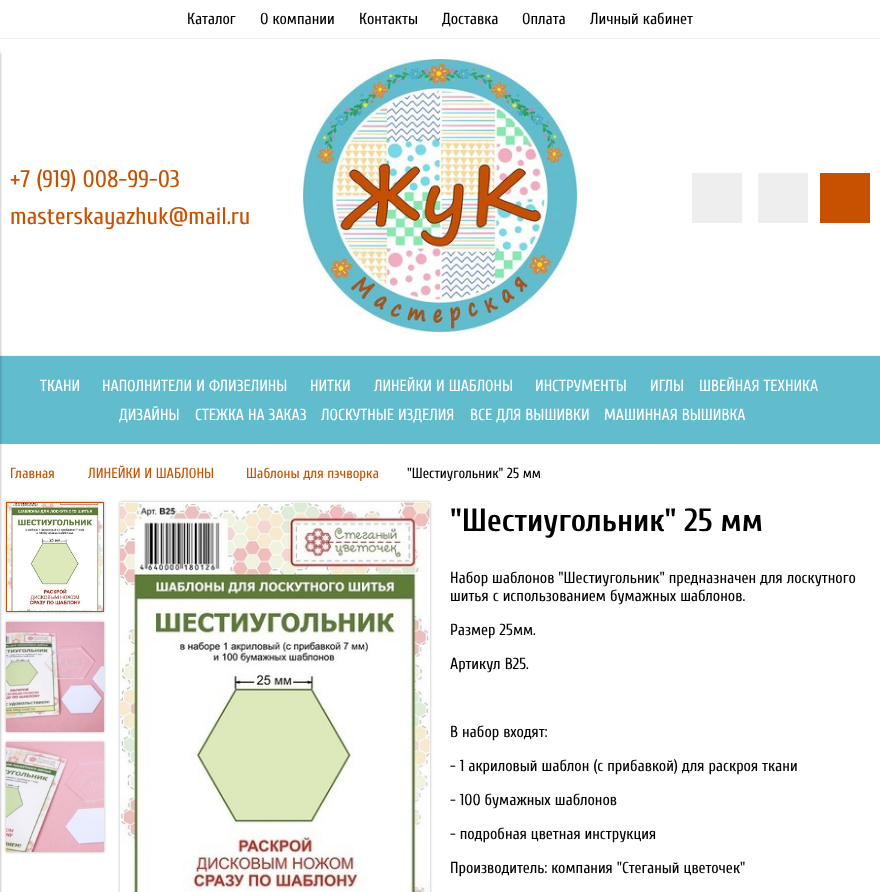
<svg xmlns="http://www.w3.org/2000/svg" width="880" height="892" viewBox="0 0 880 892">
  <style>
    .t1 { font: 16px Cuprum; fill: #000; }
    .t2 { font: 24px Cuprum; fill: #c85101; }
    .t3 { font: 16px Cuprum; fill: #fff; }
    .t4 { font: 14.5px Cuprum; fill: #c85101; }
    .t5 { font: 14.5px Cuprum; fill: #000; }
    .t6 { font: bold 32px Cuprum; fill: #000; }
  </style>
  <rect width="100%" height="100%" fill="#fff"/>
  <rect x="0" y="355" width="880" height="1" fill="#f2f2f2"/>
  <rect x="0" y="356" width="880" height="88" fill="#61bcce"/>
  <rect x="-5" y="53" width="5" height="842" fill="#00000066" filter="blur(1.5px)"/>
  <rect x="0" y="38" width="880" height="1" fill="#f2f2f2"/>
  <text x="187" y="24" class="t1">Каталог</text>
  <text x="260" y="24" class="t1">О компании</text>
  <text x="359" y="24" class="t1">Контакты</text>
  <text x="442" y="24" class="t1">Доставка</text>
  <text x="522" y="24" class="t1">Оплата</text>
  <text x="590" y="24" class="t1">Личный кабинет</text>
  <text x="10" y="187" class="t2">+7 (919) 008-99-03</text>
  <text x="10" y="224" class="t2">masterskayazhuk@mail.ru</text>
  <image x="303" y="59" width="274" height="273" href="images/1.png"/>
  <rect x="692" y="173" width="50" height="50" fill="#eee"/>
  <rect x="758" y="173" width="50" height="50" fill="#eee"/>
  <rect x="820" y="173" width="50" height="50" fill="#c85101"/>
  <text x="40" y="391" class="t3">ТКАНИ</text>
  <text x="102" y="391" class="t3">НАПОЛНИТЕЛИ И ФЛИЗЕЛИНЫ</text>
  <text x="310" y="391" class="t3">НИТКИ</text>
  <text x="374" y="391" class="t3">ЛИНЕЙКИ И ШАБЛОНЫ</text>
  <text x="535" y="391" class="t3">ИНСТРУМЕНТЫ</text>
  <text x="650" y="391" class="t3">ИГЛЫ</text>
  <text x="699" y="391" class="t3">ШВЕЙНАЯ ТЕХНИКА</text>
  <text x="119" y="420" class="t3">ДИЗАЙНЫ</text>
  <text x="195" y="420" class="t3">СТЕЖКА НА ЗАКАЗ</text>
  <text x="321" y="420" class="t3">ЛОСКУТНЫЕ ИЗДЕЛИЯ</text>
  <text x="470" y="420" class="t3">ВСЕ ДЛЯ ВЫШИВКИ</text>
  <text x="604" y="420" class="t3">МАШИННАЯ ВЫШИВКА</text>
  <text x="10" y="478" class="t4">Главная</text>
  <text x="88" y="478" class="t4">ЛИНЕЙКИ И ШАБЛОНЫ</text>
  <text x="246" y="478" class="t4">Шаблоны для пэчворка</text>
  <text x="407" y="478" class="t5">"Шестиугольник" 25 мм</text>
  <rect x="6" y="502" width="98" height="110" fill="#0000004d" filter="blur(1.5px)"/>
  <rect x="6.5" y="502.5" width="97" height="109" fill="none" stroke="#c85101"/>
  <image x="7" y="503" width="96" height="108" href="images/2.png"/>
  <rect x="6" y="622" width="98" height="110" fill="#0000004d" filter="blur(1.5px)"/>
  <image x="6" y="622" width="98" height="110" href="images/3.png"/>
  <rect x="6" y="742" width="98" height="110" fill="#0000004d" filter="blur(1.5px)"/>
  <image x="6" y="742" width="98" height="110" href="images/4.png"/>
  <rect x="120" y="502" width="310" height="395" fill="#0000004d" filter="blur(1.5px)"/>
  <image x="120" y="502" width="310" height="390" href="images/5.png"/>
  <text x="450" y="531" class="t6">"Шестиугольник" 25 мм</text>
  <text x="450" y="583" class="t1">Набор шаблонов "Шестиугольник" предназначен для лоскутного</text>
  <text x="450" y="601" class="t1">шитья с использованием бумажных шаблонов.</text>
  <text x="450" y="635" class="t1">Размер 25мм.</text>
  <text x="450" y="669" class="t1">Артикул B25.</text>
  <text x="450" y="737" class="t1">В набор входят:</text>
  <text x="450" y="771" class="t1">- 1 акриловый шаблон (с прибавкой) для раскроя ткани</text>
  <text x="450" y="805" class="t1">- 100 бумажных шаблонов</text>
  <text x="450" y="839" class="t1">- подробная цветная инструкция</text>
  <text x="450" y="873" class="t1">Производитель: компания "Стеганый цветочек"</text>
</svg>
